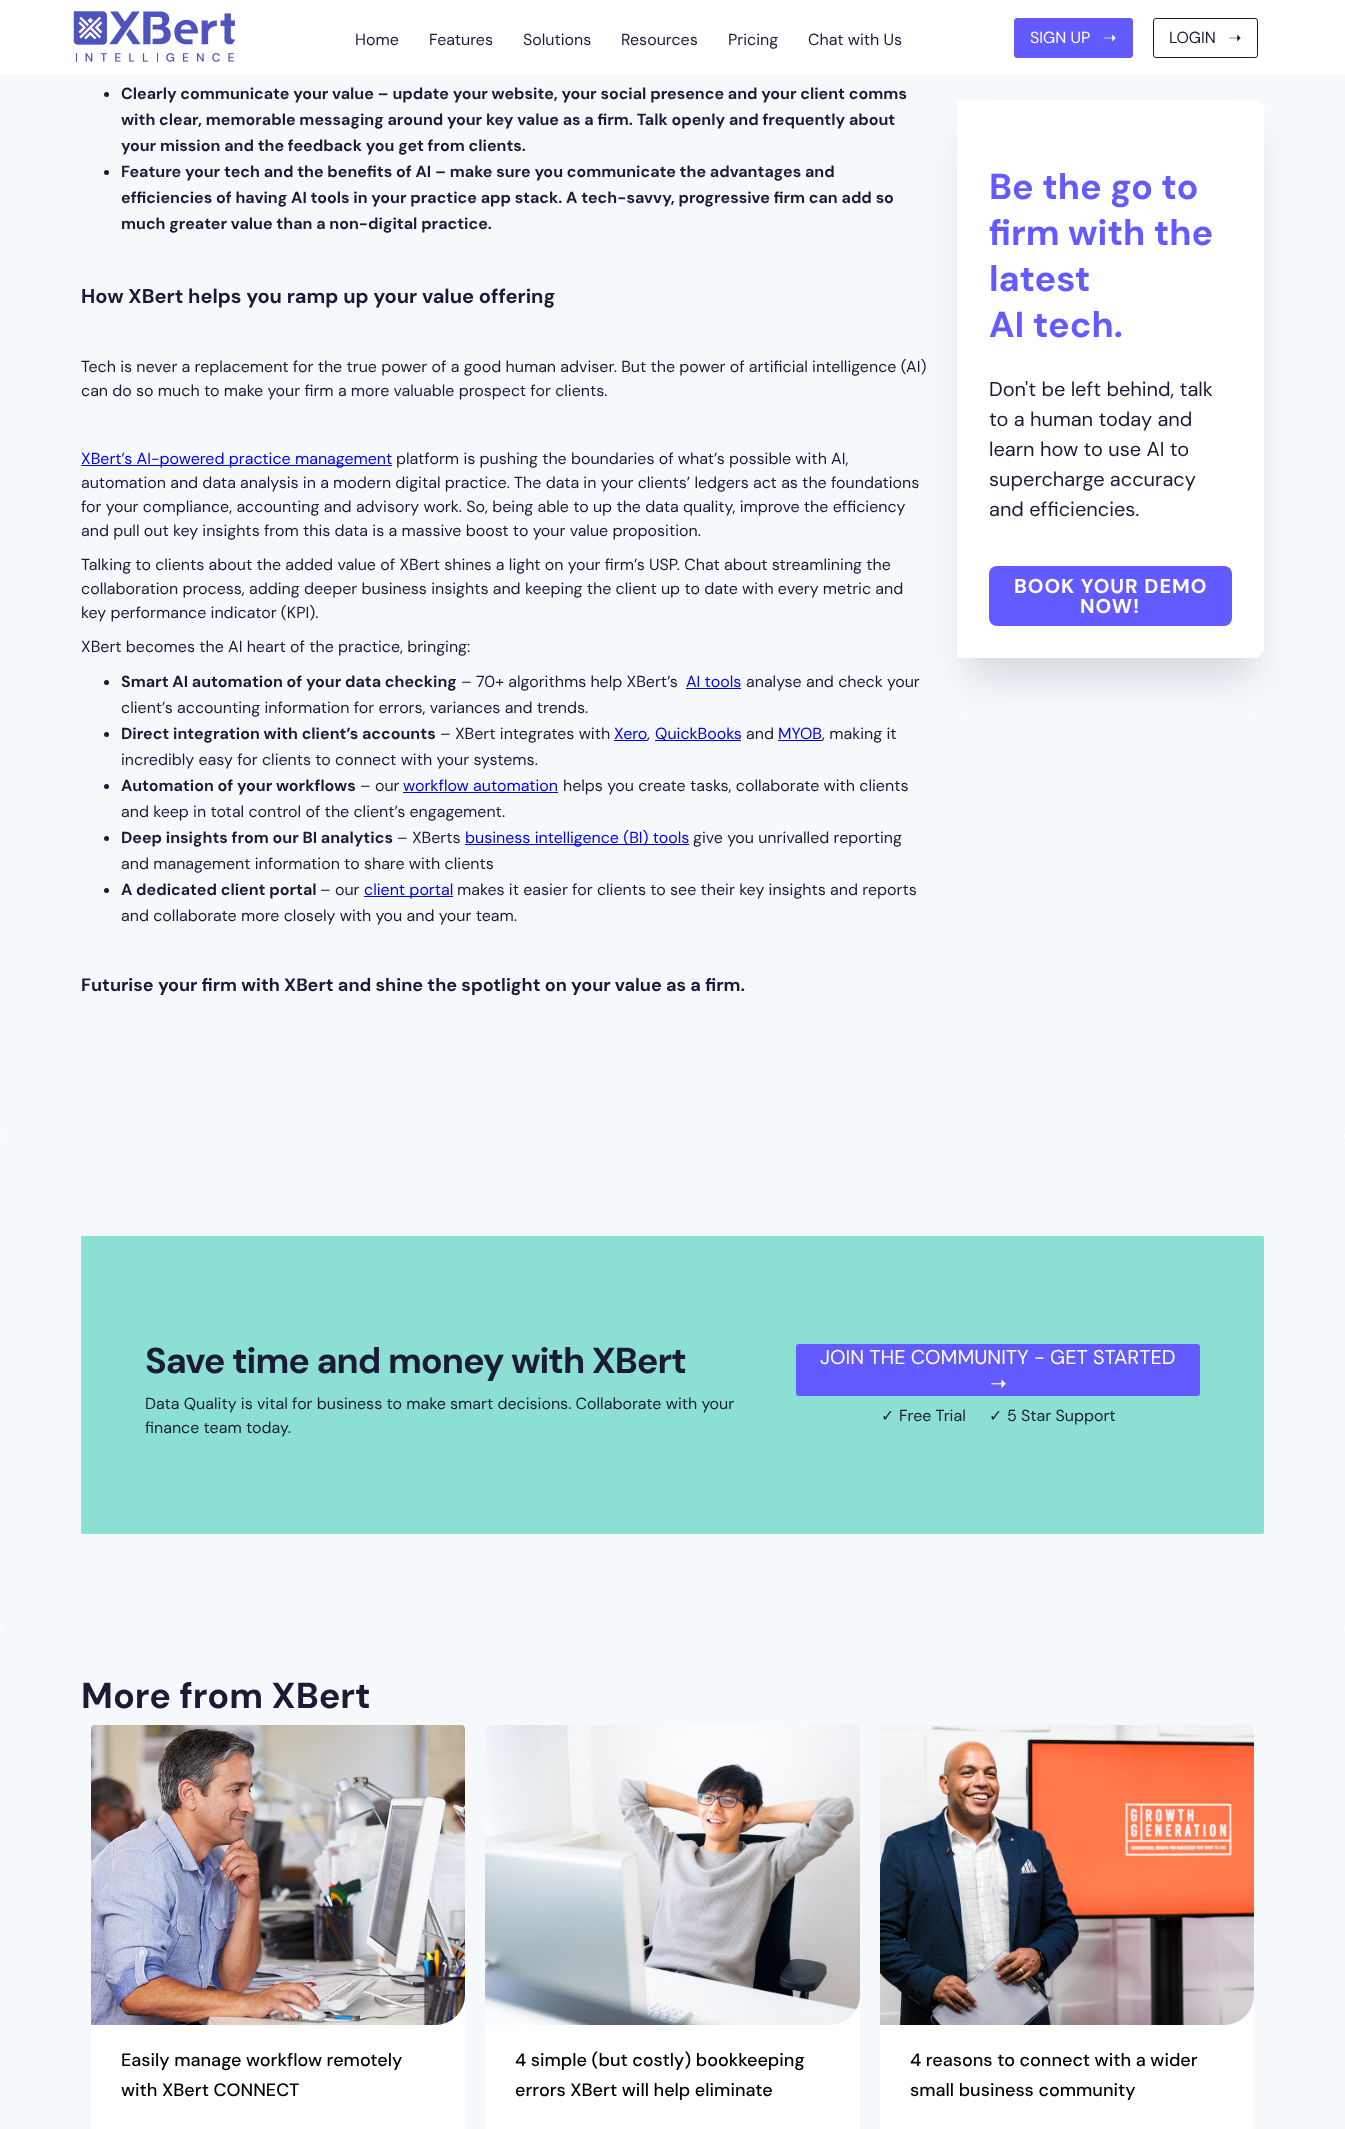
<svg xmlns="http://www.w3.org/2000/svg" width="1345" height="2129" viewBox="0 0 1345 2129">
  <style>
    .t1 { font: 16px DM Sans; fill: #1c1b37; }
    .t2 { font: 16px DM Sans; fill: #fff; }
    .t3 { font: 16px DejaVu Sans; fill: #fff; }
    .t4 { font: 16px DejaVu Sans; fill: #1c1b37; }
    .t5 { font: bold 16px DM Sans; fill: #1c1b37; }
    .t6 { font: bold 20px DM Sans; fill: #1c1b37; }
    .t7 { font: 16px DM Sans; fill: #00e; }
    .t8 { font: bold 18px DM Sans; fill: #1c1b37; }
    .t9 { font: bold 36px DM Sans; fill: #635bff; }
    .t10 { font: 20px DM Sans; fill: #1c1b37; }
    .t11 { font: bold 20px DM Sans; letter-spacing: 1px; fill: #fff; }
    .t12 { font: bold 36px DM Sans; letter-spacing: -1px; fill: #1c1b37; }
    .t13 { font: 20px DM Sans; fill: #fff; }
    .t14 { font: 20px DejaVu Sans; fill: #fff; }
    .t15 { font: bold 36px DM Sans; fill: #1c1b37; }
    .t16 { font: 500 18px DM Sans; fill: #000; }
  </style>
  <rect width="100%" height="100%" fill="#fff"/>
  <rect x="0" y="-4" width="1345" height="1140" rx="4" fill="#f6f9fc"/>
  <rect x="0" y="0" width="1345" height="75" fill="#fff"/>
  <image x="73" y="11" width="163" height="51" href="images/1.png"/>
  <text x="355" y="45" class="t1">Home</text>
  <text x="429" y="45" class="t1">Features</text>
  <text x="523" y="45" class="t1">Solutions</text>
  <text x="621" y="45" class="t1">Resources</text>
  <text x="728" y="45" class="t1">Pricing</text>
  <text x="808" y="45" class="t1">Chat with Us</text>
  <rect x="1014.5" y="18.5" width="118" height="39" rx="2.5" fill="#635bff" stroke="#635bff"/>
  <text x="1030" y="43" class="t2">SIGN UP</text>
  <text x="1103" y="43" class="t3">➝</text>
  <rect x="1153.5" y="18.5" width="104" height="39" rx="2.5" fill="none" stroke="#1c1b37"/>
  <text x="1169" y="43" class="t1">LOGIN</text>
  <text x="1228" y="43" class="t4">➝</text>
  <circle cx="106.5" cy="94.5" r="2.5" fill="#1c1b37"/>
  <text x="121" y="99" class="t5">Clearly communicate your value – update your website, your social presence and your client comms</text>
  <text x="121" y="125" class="t5">with clear, memorable messaging around your key value as a firm. Talk openly and frequently about</text>
  <text x="121" y="151" class="t5">your mission and the feedback you get from clients.</text>
  <circle cx="106.5" cy="172.5" r="2.5" fill="#1c1b37"/>
  <text x="121" y="177" class="t5">Feature your tech and the benefits of AI – make sure you communicate the advantages and</text>
  <text x="121" y="203" class="t5">efficiencies of having AI tools in your practice app stack. A tech-savvy, progressive firm can add so</text>
  <text x="121" y="229" class="t5">much greater value than a non-digital practice.</text>
  <text x="81" y="303" class="t6">How XBert helps you ramp up your value offering</text>
  <text x="81" y="372" class="t1">Tech is never a replacement for the true power of a good human adviser. But the power of artificial intelligence (AI)</text>
  <text x="81" y="396" class="t1">can do so much to make your firm a more valuable prospect for clients.</text>
  <rect x="81" y="465" width="311" height="1" fill="#00e"/>
  <text x="81" y="464" class="t7">XBert’s AI-powered practice management</text>
  <text x="396" y="464" class="t1">platform is pushing the boundaries of what’s possible with AI,</text>
  <text x="81" y="488" class="t1">automation and data analysis in a modern digital practice. The data in your clients’ ledgers act as the foundations</text>
  <text x="81" y="512" class="t1">for your compliance, accounting and advisory work. So, being able to up the data quality, improve the efficiency</text>
  <text x="81" y="536" class="t1">and pull out key insights from this data is a massive boost to your value proposition.</text>
  <text x="81" y="570" class="t1">Talking to clients about the added value of XBert shines a light on your firm’s USP. Chat about streamlining the</text>
  <text x="81" y="594" class="t1">collaboration process, adding deeper business insights and keeping the client up to date with every metric and</text>
  <text x="81" y="618" class="t1">key performance indicator (KPI).</text>
  <text x="81" y="652" class="t1">XBert becomes the AI heart of the practice, bringing:</text>
  <circle cx="106.5" cy="682.5" r="2.5" fill="#1c1b37"/>
  <text x="121" y="687" class="t5">Smart AI automation of your data checking</text>
  <text x="461" y="687" class="t1">– 70+ algorithms help XBert’s</text>
  <text x="686" y="687" class="t7">AI tools</text>
  <rect x="686" y="688" width="55" height="1" fill="#00e"/>
  <text x="746" y="687" class="t1">analyse and check your</text>
  <text x="121" y="713" class="t1">client’s accounting information for errors, variances and trends.</text>
  <circle cx="106.5" cy="734.5" r="2.5" fill="#1c1b37"/>
  <text x="121" y="739" class="t5">Direct integration with client’s accounts</text>
  <text x="440" y="739" class="t1">– XBert integrates with</text>
  <text x="614" y="739" class="t7">Xero</text>
  <rect x="614" y="740" width="33" height="1" fill="#00e"/>
  <rect x="655" y="740" width="86" height="1" fill="#00e"/>
  <text x="655" y="739" class="t7">QuickBooks</text>
  <text x="746" y="739" class="t1">and</text>
  <text x="778" y="739" class="t7">MYOB</text>
  <rect x="778" y="740" width="44" height="1" fill="#00e"/>
  <text x="822" y="739" class="t1">, making it</text>
  <text x="647" y="739" class="t1">,</text>
  <text x="121" y="765" class="t1">incredibly easy for clients to connect with your systems.</text>
  <circle cx="106.5" cy="786.5" r="2.5" fill="#1c1b37"/>
  <text x="121" y="791" class="t5">Automation of your workflows</text>
  <text x="360" y="791" class="t1">– our</text>
  <text x="403" y="791" class="t7">workflow automation</text>
  <rect x="403" y="792" width="155" height="1" fill="#00e"/>
  <text x="563" y="791" class="t1">helps you create tasks, collaborate with clients</text>
  <text x="121" y="817" class="t1">and keep in total control of the client’s engagement.</text>
  <circle cx="106.5" cy="838.5" r="2.5" fill="#1c1b37"/>
  <text x="121" y="843" class="t5">Deep insights from our BI analytics</text>
  <text x="397" y="843" class="t1">– XBerts</text>
  <rect x="465" y="844" width="224" height="1" fill="#00e"/>
  <text x="465" y="843" class="t7">business intelligence (BI) tools</text>
  <text x="693" y="843" class="t1">give you unrivalled reporting</text>
  <text x="121" y="869" class="t1">and management information to share with clients</text>
  <circle cx="106.5" cy="890.5" r="2.5" fill="#1c1b37"/>
  <text x="121" y="895" class="t5">A dedicated client portal</text>
  <text x="320" y="895" class="t1">– our</text>
  <rect x="364" y="896" width="89" height="1" fill="#00e"/>
  <text x="364" y="895" class="t7">client portal</text>
  <text x="457" y="895" class="t1">makes it easier for clients to see their key insights and reports</text>
  <text x="121" y="921" class="t1">and collaborate more closely with you and your team.</text>
  <text x="81" y="991" class="t8">Futurise your firm with XBert and shine the spotlight on your value as a firm.</text>
  <rect x="967" y="140" width="287" height="538" fill="#1c1b3726" filter="blur(20px)"/>
  <path d="M957 100H1254C1259.5 100 1264 104.5 1264 110V648C1264 653.5 1259.5 658 1254 658H957Z" fill="#fff"/>
  <text x="989" y="199" class="t9">Be the go to</text>
  <text x="989" y="245" class="t9">firm with the</text>
  <text x="989" y="291" class="t9">latest</text>
  <text x="989" y="337" class="t9">AI tech.</text>
  <text x="989" y="396" class="t10">Don't be left behind, talk</text>
  <text x="989" y="426" class="t10">to a human today and</text>
  <text x="989" y="456" class="t10">learn how to use AI to</text>
  <text x="989" y="486" class="t10">supercharge accuracy</text>
  <text x="989" y="516" class="t10">and efficiencies.</text>
  <rect x="989" y="566" width="243" height="60" rx="8" fill="#635bff"/>
  <text x="1014" y="593" class="t11">BOOK YOUR DEMO</text>
  <text x="1080" y="613" class="t11">NOW!</text>
  <rect x="0" y="1136" width="1345" height="493" rx="4" fill="#f6f9fc"/>
  <rect x="81" y="1236" width="1183" height="298" rx="2" fill="#8be0d3"/>
  <text x="145" y="1373" class="t12">Save time and money with XBert</text>
  <text x="145" y="1409" class="t1">Data Quality is vital for business to make smart decisions. Collaborate with your</text>
  <text x="145" y="1433" class="t1">finance team today.</text>
  <rect x="796" y="1344" width="404" height="52" rx="3" fill="#635bff"/>
  <text x="820" y="1364" class="t13">JOIN THE COMMUNITY - GET STARTED</text>
  <text x="990" y="1390" class="t14">➝</text>
  <text x="881" y="1421" class="t4">✓</text>
  <text x="899" y="1421" class="t1">Free Trial</text>
  <text x="989" y="1421" class="t4">✓</text>
  <text x="1007" y="1421" class="t1">5 Star Support</text>
  <rect x="0" y="1629" width="1345" height="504" rx="4" fill="#f6f9fc"/>
  <text x="81" y="1708" class="t15">More from XBert</text>
  <rect x="91" y="1725" width="374" height="404" fill="#fff"/>
  <image x="91" y="1725" width="374" height="300" href="images/2.png"/>
  <text x="121" y="2066" class="t16">Easily manage workflow remotely</text>
  <text x="121" y="2096" class="t16">with XBert CONNECT</text>
  <rect x="485" y="1725" width="375" height="404" fill="#fff"/>
  <image x="485" y="1725" width="375" height="300" href="images/3.png"/>
  <text x="515" y="2066" class="t16">4 simple (but costly) bookkeeping</text>
  <text x="515" y="2096" class="t16">errors XBert will help eliminate</text>
  <rect x="880" y="1725" width="374" height="404" fill="#fff"/>
  <image x="880" y="1725" width="374" height="300" href="images/4.png"/>
  <text x="910" y="2066" class="t16">4 reasons to connect with a wider</text>
  <text x="910" y="2096" class="t16">small business community</text>
</svg>
